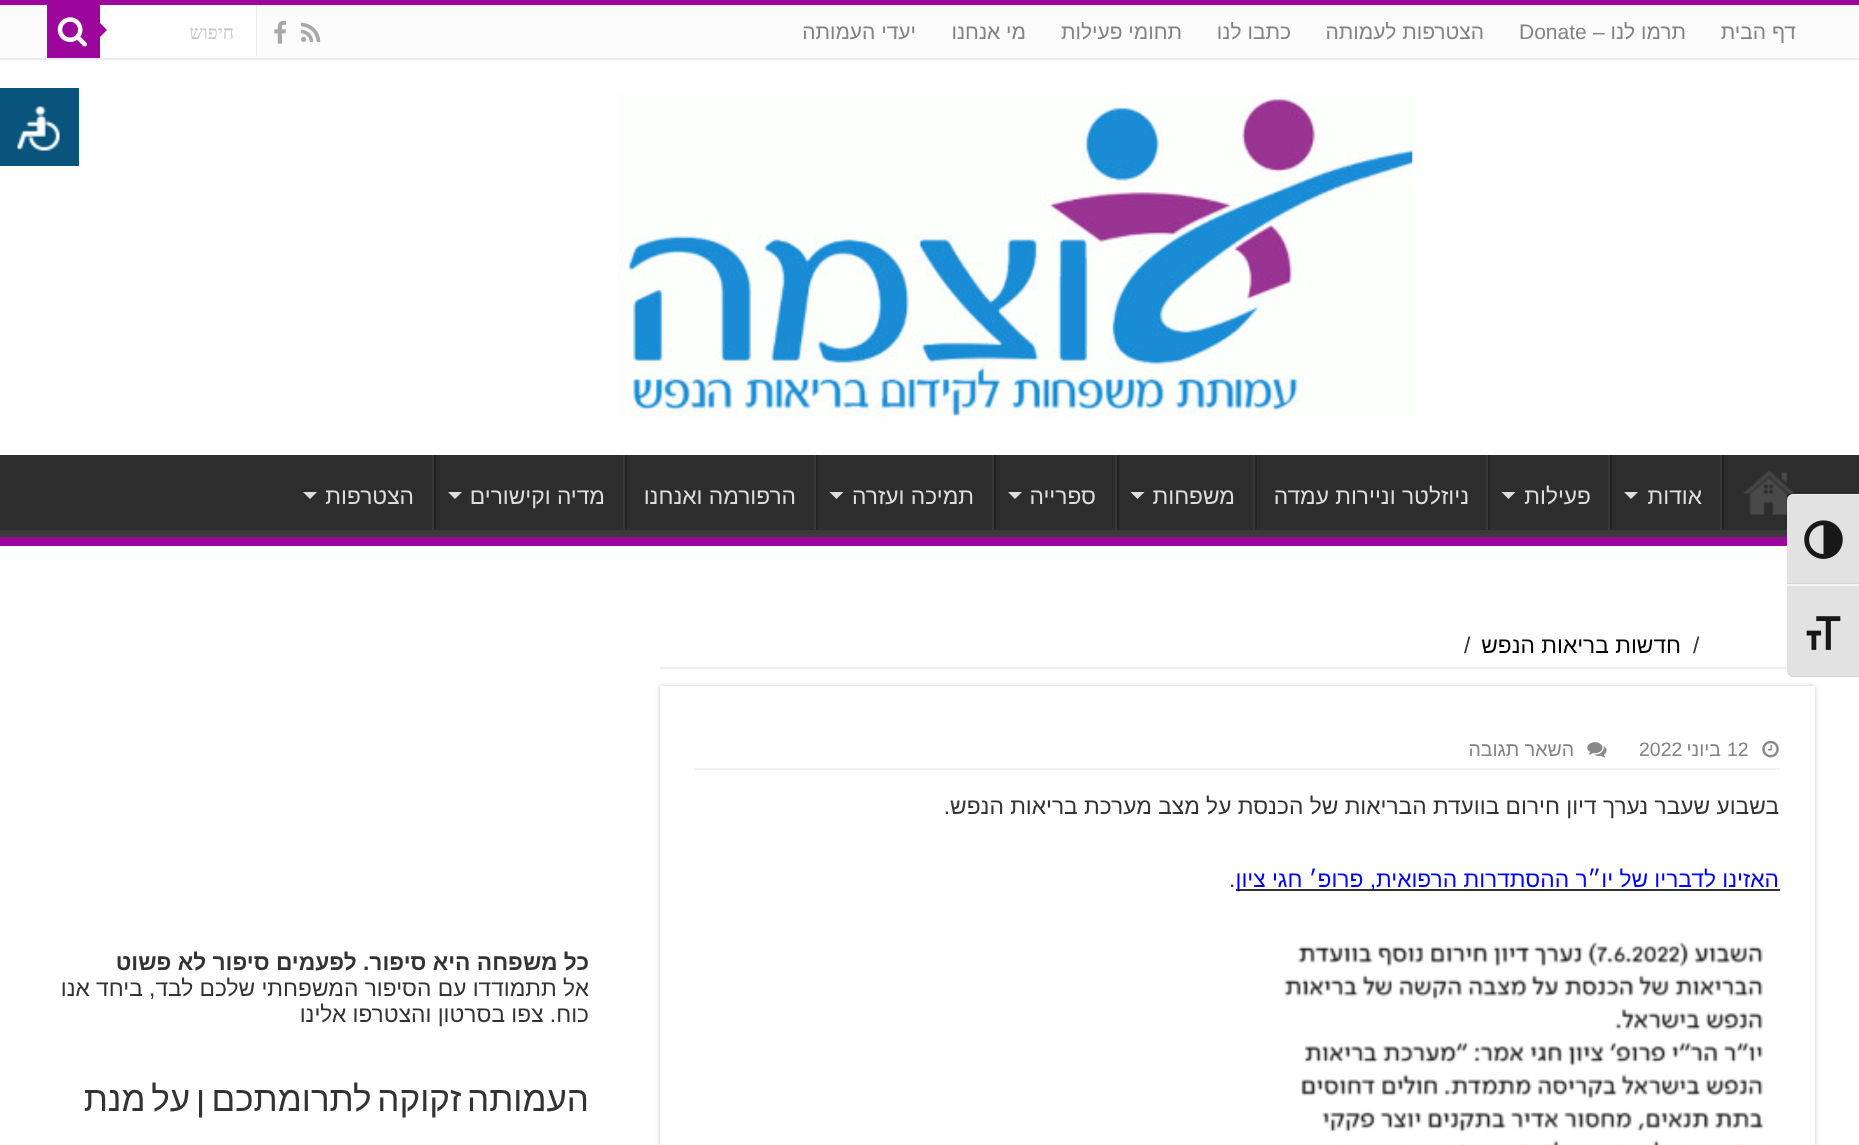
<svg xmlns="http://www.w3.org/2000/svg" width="1859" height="1145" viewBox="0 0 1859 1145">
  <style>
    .t1 { font: 21px Liberation Sans; direction: rtl; fill: #838383; }
    .t2 { font: 21px Liberation Sans; fill: #838383; }
    .t3 { font: 19px Liberation Serif; direction: rtl; fill: #c5c5c5; }
    .t4 { font: 22.75px Liberation Sans; direction: rtl; fill: #ddd; }
    .t5 { font: 22.75px Liberation Sans; fill: #333; }
    .t6 { font: 22.75px Liberation Sans; direction: rtl; fill: #000; }
    .t7 { font: 19.5px Liberation Sans; fill: #838383; }
    .t8 { font: 19.5px Liberation Sans; direction: rtl; fill: #838383; }
    .t9 { font: 22.75px Liberation Sans; direction: rtl; fill: #333; }
    .t10 { font: 22.75px Liberation Sans; direction: rtl; fill: #00f; }
    .t11 { font: bold 22.75px Liberation Sans; direction: rtl; fill: #333; }
    .t12 { font: 35px Liberation Sans; direction: rtl; fill: #333; }
  </style>
  <defs>
    <clipPath id="clip1"><rect x="0" y="455" width="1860" height="82"/></clipPath>
  </defs>
  <rect width="100%" height="100%" fill="#fff"/>
  <rect x="0" y="0" width="1859" height="5" fill="#9c069c"/>
  <rect x="0" y="5" width="1859" height="53" fill="#fbfbfb"/>
  <rect x="0" y="58" width="1859" height="2" fill="#ececec"/>
  <text x="1796" y="39" class="t1">דף הבית</text>
  <text x="1686" y="39" class="t1">תרמו לנו –</text>
  <text x="1519" y="39" class="t2">Donate</text>
  <text x="1484" y="39" class="t1">הצטרפות לעמותה</text>
  <text x="1291" y="39" class="t1">כתבו לנו</text>
  <text x="1182" y="39" class="t1">תחומי פעילות</text>
  <text x="1026" y="39" class="t1">מי אנחנו</text>
  <text x="916" y="39" class="t1">יעדי העמותה</text>
  <image x="301" y="22" width="20" height="20" href="images/1.png"/>
  <image x="274" y="21" width="13" height="23" href="images/2.png"/>
  <rect x="100" y="5" width="156" height="51" fill="#fff"/>
  <rect x="256" y="5" width="1" height="51" fill="#ececec"/>
  <text x="234" y="39" class="t3">חיפוש</text>
  <rect x="47" y="5" width="53" height="53" fill="#9c069c"/>
  <image x="57" y="17" width="30" height="30" href="images/3.png"/>
  <path d="M100 37V23L107 30Z" fill="#9c069c"/>
  <image x="617" y="94" width="796" height="323" href="images/4.png"/>
  <rect x="0" y="455" width="1859" height="75" fill="#2d2d2d"/>
  <g clip-path="url(#clip1)">
    <path d="M-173 282H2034V710H-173ZM-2 444H1858C1859 444 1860 445 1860 446V528C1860 529 1859 530 1858 530H-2C-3 530-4 529-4 528V446C-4 445-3 444-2 444Z" fill="#393939" fill-rule="evenodd"/>
  </g>
  <rect x="0" y="537" width="1787" height="9" fill="#9c069c"/>
  <image x="1743" y="470" width="51" height="45" href="images/5.png"/>
  <rect x="1722" y="455" width="2" height="74" fill="#222"/>
  <rect x="1720" y="455" width="2" height="74" fill="#383838"/>
  <text x="1702" y="504" class="t4">אודות</text>
  <path d="M1624 492H1638L1631 499Z" fill="#ddd"/>
  <rect x="1610" y="455" width="2" height="74" fill="#222"/>
  <rect x="1608" y="455" width="2" height="74" fill="#383838"/>
  <text x="1591" y="504" class="t4">פעילות</text>
  <path d="M1501.5 492H1515.5L1508.5 499Z" fill="#ddd"/>
  <rect x="1488" y="455" width="2" height="74" fill="#222"/>
  <rect x="1486" y="455" width="2" height="74" fill="#383838"/>
  <text x="1469" y="504" class="t4">ניוזלטר וניירות עמדה</text>
  <rect x="1255" y="455" width="2" height="74" fill="#222"/>
  <rect x="1253" y="455" width="2" height="74" fill="#383838"/>
  <text x="1235" y="504" class="t4">משפחות</text>
  <path d="M1130.5 492H1144.5L1137.5 499Z" fill="#ddd"/>
  <rect x="1117" y="455" width="2" height="74" fill="#222"/>
  <rect x="1115" y="455" width="2" height="74" fill="#383838"/>
  <text x="1096" y="504" class="t4">ספרייה</text>
  <path d="M1008 492H1022L1015 499Z" fill="#ddd"/>
  <rect x="994" y="455" width="2" height="74" fill="#222"/>
  <rect x="992" y="455" width="2" height="74" fill="#383838"/>
  <text x="974" y="504" class="t4">תמיכה ועזרה</text>
  <path d="M829.5 492H843.5L836.5 499Z" fill="#ddd"/>
  <rect x="816" y="455" width="2" height="74" fill="#222"/>
  <rect x="814" y="455" width="2" height="74" fill="#383838"/>
  <text x="796" y="504" class="t4">הרפורמה ואנחנו</text>
  <rect x="625" y="455" width="2" height="74" fill="#222"/>
  <rect x="623" y="455" width="2" height="74" fill="#383838"/>
  <text x="605" y="504" class="t4">מדיה וקישורים</text>
  <path d="M448 492H462L455 499Z" fill="#ddd"/>
  <rect x="434" y="455" width="2" height="74" fill="#222"/>
  <rect x="432" y="455" width="2" height="74" fill="#383838"/>
  <text x="414" y="504" class="t4">הצטרפות</text>
  <path d="M303 492H317L310 499Z" fill="#ddd"/>
  <rect x="660" y="667" width="1127" height="2" fill="#eee"/>
  <text x="1693" y="653" class="t5">/</text>
  <text x="1681" y="653" class="t6">חדשות בריאות הנפש</text>
  <text x="1464" y="653" class="t5">/</text>
  <rect x="660" y="686" width="1155" height="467" fill="#cacaca" filter="blur(2.5px)"/>
  <rect x="660" y="686" width="1155" height="459" fill="#fff"/>
  <rect x="695" y="768" width="1085" height="2" fill="#f2f2f2"/>
  <image x="1762" y="740" width="17" height="18" href="images/6.png"/>
  <text x="1727" y="756" class="t7">12</text>
  <text x="1721" y="756" class="t8">ביוני</text>
  <text x="1639" y="756" class="t7">2022</text>
  <image x="1587" y="742" width="20" height="16" href="images/7.png"/>
  <text x="1574" y="756" class="t8">השאר תגובה</text>
  <text x="1779" y="814" class="t9">בשבוע שעבר נערך דיון חירום בוועדת הבריאות של הכנסת על מצב מערכת בריאות הנפש.</text>
  <rect x="1236" y="889" width="544" height="2" fill="#333"/>
  <text x="1779" y="887" class="t10">האזינו לדבריו של יו״ר ההסתדרות הרפואית, פרופ׳ חגי ציון</text>
  <text x="1229" y="887" class="t5">.</text>
  <image x="1284" y="941" width="480" height="204" href="images/8.png"/>
  <text x="589" y="970" class="t11">כל משפחה היא סיפור. לפעמים סיפור לא פשוט</text>
  <text x="589" y="996" class="t9">אל תתמודדו עם הסיפור המשפחתי שלכם לבד, ביחד אנו</text>
  <text x="589" y="1022" class="t9">כוח. צפו בסרטון והצטרפו אלינו</text>
  <text x="589" y="1111" word-spacing="-4" class="t12">העמותה זקוקה לתרומתכם</text>
  <text x="205" y="1111" word-spacing="-4" class="t12">ן על מנת</text>
  <rect x="0" y="88" width="79" height="78" fill="#09547c"/>
  <image x="17" y="106" width="43" height="45" href="images/9.png"/>
  <path d="M1794 494H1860V585H1787V501C1787 497 1790 494 1794 494Z" fill="#e2e2e2"/>
  <path d="M1794 494C1790 494 1787 497 1787 500C1787 498 1790 495 1794 495H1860V494Z" fill="#f5f5f5"/>
  <rect x="1787" y="583" width="72" height="1" fill="#d2d2d2"/>
  <image x="1804" y="520" width="39" height="39" href="images/10.png"/>
  <path d="M1787 585H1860V677H1794C1790 677 1787 674 1787 670Z" fill="#e2e2e2"/>
  <rect x="1787" y="584" width="72" height="2" fill="#f5f5f5"/>
  <path d="M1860 677V676H1794C1790 676 1787 673 1787 670C1787 674 1790 677 1794 677Z" fill="#d2d2d2"/>
  <image x="1806" y="616" width="35" height="34" href="images/11.png"/>
</svg>
